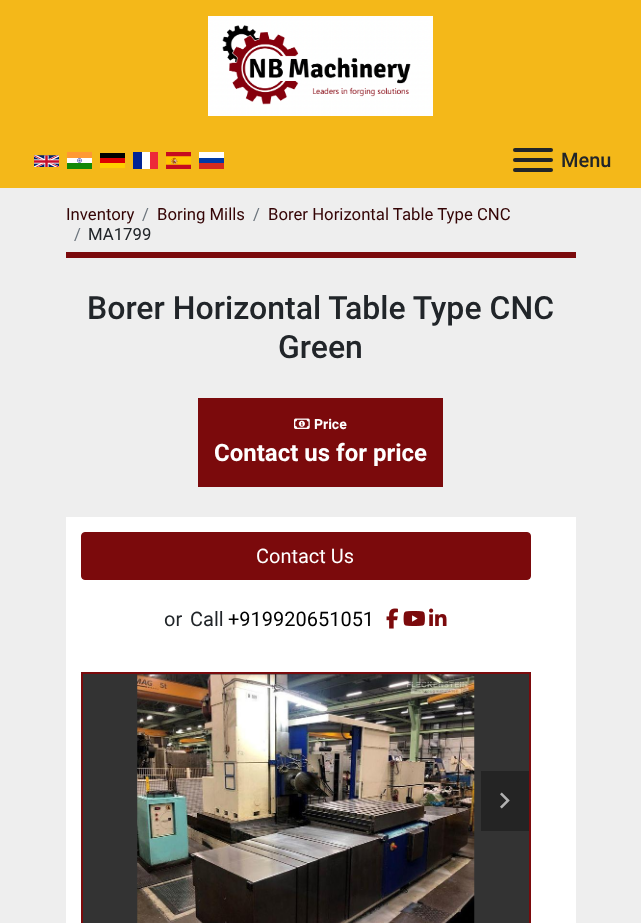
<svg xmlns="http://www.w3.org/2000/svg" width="641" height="923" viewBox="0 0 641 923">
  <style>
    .t1 { font: 500 20px Roboto; fill: #212529; }
    .t2 { font: 16.75px Roboto; fill: #340405; }
    .t3 { font: 16.75px Roboto; fill: #6c757d; }
    .t4 { font: 16.75px Roboto; fill: #212529; }
    .t5 { font: 500 32px Roboto; fill: #212529; }
    .t6 { font: bold 14px Roboto; fill: #fff; }
    .t7 { font: bold 24px Roboto; fill: #fff; }
    .t8 { font: 20px Roboto; fill: #fff; }
    .t9 { font: 20px Roboto; fill: #212529; }
    .t10 { font: 20px Roboto; fill: #000; }
  </style>
  <rect width="100%" height="100%" fill="#eee"/>
  <rect x="0" y="0" width="641" height="188" fill="#f4b819"/>
  <image x="208" y="16" width="225" height="100" href="images/1.png"/>
  <image x="34" y="155" width="25" height="12" href="images/2.png"/>
  <image x="67" y="152" width="25" height="17" href="images/3.png"/>
  <rect x="100" y="153" width="25" height="5" fill="#000"/>
  <rect x="100" y="158" width="25" height="5" fill="#d00"/>
  <rect x="100" y="163" width="25" height="5" fill="#ffce00"/>
  <rect x="133" y="152" width="9" height="17" fill="#002395"/>
  <rect x="142" y="152" width="8" height="17" fill="#fff"/>
  <rect x="150" y="152" width="8" height="17" fill="#ed2939"/>
  <image x="166" y="152" width="25" height="17" href="images/4.png"/>
  <rect x="199" y="152" width="25" height="6" fill="#fff"/>
  <rect x="199" y="158" width="25" height="5" fill="#0039a6"/>
  <rect x="199" y="163" width="25" height="6" fill="#d52b1e"/>
  <rect x="513" y="158" width="40" height="4" rx="2" fill="#212529"/>
  <rect x="513" y="148" width="40" height="4" rx="2" fill="#212529"/>
  <rect x="513" y="168" width="40" height="4" rx="2" fill="#212529"/>
  <text x="561" y="167" class="t1">Menu</text>
  <rect x="66" y="252" width="510" height="6" fill="#7b0a0c"/>
  <text x="66" y="220" class="t2">Inventory</text>
  <text x="142" y="220" class="t3">/</text>
  <text x="157" y="220" class="t2">Boring Mills</text>
  <text x="253" y="220" class="t3">/</text>
  <text x="268" y="220" class="t2">Borer Horizontal Table Type CNC</text>
  <text x="74" y="240" class="t3">/</text>
  <text x="88" y="240" class="t4">MA1799</text>
  <text x="87" y="319" class="t5">Borer Horizontal Table Type CNC</text>
  <text x="278" y="358" class="t5">Green</text>
  <rect x="198" y="398" width="245" height="89" fill="#7b0a0c"/>
  <image x="294" y="418" width="16" height="11" href="images/5.png"/>
  <text x="314" y="429" class="t6">Price</text>
  <text x="214" y="461" class="t7">Contact us for price</text>
  <rect x="66" y="517" width="510" height="406" fill="#fff"/>
  <rect x="81.5" y="532.5" width="449" height="47" rx="3.5" fill="#7b0a0c" stroke="#7b0a0c"/>
  <text x="256" y="563" class="t8">Contact Us</text>
  <text x="164" y="626" class="t9">or</text>
  <text x="190" y="626" class="t9">Call</text>
  <text x="228" y="626" class="t10">+919920651051</text>
  <image x="386" y="608" width="12" height="21" href="images/6.png"/>
  <image x="403" y="611" width="22" height="15" href="images/7.png"/>
  <image x="429" y="608" width="18" height="18" href="images/8.png"/>
  <rect x="82" y="673" width="448" height="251" fill="#333" stroke="#7b0a0c" stroke-width="2"/>
  <image x="137" y="674" width="338" height="249" href="images/9.png"/>
  <rect x="481" y="771" width="48" height="60" fill="#242424"/>
  <image x="500" y="792" width="10" height="17" href="images/10.png"/>
</svg>
